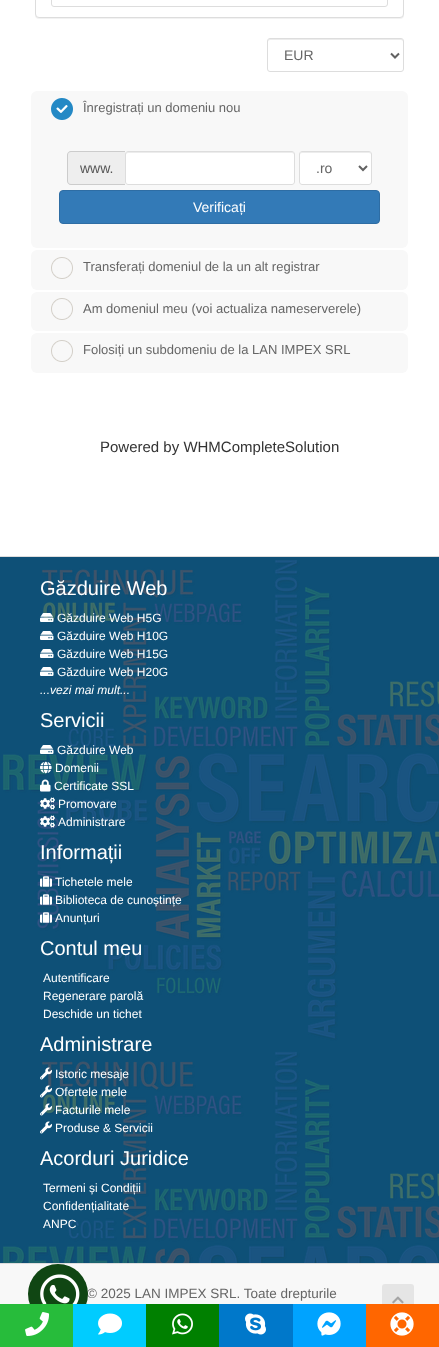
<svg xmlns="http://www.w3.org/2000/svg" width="439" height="1347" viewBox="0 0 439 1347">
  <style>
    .t1 { font: 14px Liberation Sans; fill: #666; }
    .t2 { font: 13px Liberation Sans; fill: #666; }
    .t3 { font: 14px Liberation Sans; fill: #555; }
    .t4 { font: 14px Liberation Sans; fill: #fff; }
    .t5 { font: 15px Liberation Sans; fill: #333; }
    .t6 { font: 20px Liberation Sans; fill: #fff; }
    .t7 { font: 12px Liberation Sans; fill: #fff; }
    .t8 { font: italic 12px Liberation Sans; fill: #fff; }
    .t9 { font: 13.5px Liberation Sans; fill: #666; }
  </style>
  <rect width="100%" height="100%" fill="#f8f8f8"/>
  <rect x="0" y="0" width="439" height="556" fill="#fff"/>
  <rect x="35" y="-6" width="369" height="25" rx="4" fill="#0000000d" filter="blur(0.5px)"/>
  <rect x="35.5" y="-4.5" width="368" height="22" rx="3.5" fill="#fff" stroke="#ddd"/>
  <rect x="51.5" y="-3.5" width="336" height="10" rx="2.5" fill="none" stroke="#ddd"/>
  <path d="M270 40H401C402 40 403 41 403 42C403 41 403 39 401 39H270C268 39 268 41 268 42C268 41 269 40 270 40Z" fill="#ececec"/>
  <rect x="267.5" y="38.5" width="136" height="33" rx="2.5" fill="none" stroke="#ddd"/>
  <path d="M391 53.5L395 57.5L399 53.5" fill="none" stroke="#626262" stroke-width="2"/>
  <text x="284" y="60" class="t1">EUR</text>
  <rect x="31" y="91" width="377" height="157" rx="6" fill="#f8f8f8"/>
  <image x="51" y="98" width="22" height="22" href="images/1.png"/>
  <text x="83" y="112" class="t2">Înregistrați un domeniu nou</text>
  <path d="M71 151H125V185H71C69 185 67 183 67 181V155C67 153 69 151 71 151Z" fill="#eee"/>
  <path d="M71 151H125V185H71C69 185 67 183 67 181V155C67 153 69 151 71 151ZM71 152H125V184H71C69 184 68 183 68 181V155C68 153 69 152 71 152Z" fill="#ccc" fill-rule="evenodd"/>
  <text x="80" y="173" class="t3">www.</text>
  <rect x="125" y="151" width="170" height="34" rx="3" fill="#fff"/>
  <path d="M128 153H292C293 153 294 154 294 155C294 154 294 152 292 152H128C126 152 126 154 126 155C126 154 127 153 128 153Z" fill="#ececec"/>
  <rect x="125.5" y="151.5" width="169" height="33" rx="2.5" fill="none" stroke="#ddd"/>
  <rect x="299" y="151" width="73" height="34" rx="3" fill="#fff"/>
  <path d="M302 153H369C370 153 371 154 371 155C371 149 361 152 358 152H313C310 152 300 149 300 155C300 154 301 153 302 153Z" fill="#ececec"/>
  <rect x="299.5" y="151.5" width="72" height="33" rx="2.5" fill="none" stroke="#ddd"/>
  <path d="M359 166L363 170L367 166" fill="none" stroke="#626262" stroke-width="2"/>
  <text x="316" y="173" class="t1">.ro</text>
  <rect x="59.5" y="190.5" width="320" height="33" rx="3.5" fill="#337ab7" stroke="#2e6da4"/>
  <text x="193" y="212" class="t4">Verificați</text>
  <rect x="31" y="250" width="377" height="40" rx="6" fill="#f8f8f8"/>
  <image x="51" y="257" width="22" height="22" href="images/2.png"/>
  <text x="83" y="271" class="t2">Transferați domeniul de la un alt registrar</text>
  <rect x="31" y="292" width="377" height="39" rx="6" fill="#f8f8f8"/>
  <image x="51" y="298" width="22" height="22" href="images/2.png"/>
  <text x="83" y="313" class="t2">Am domeniul meu (voi actualiza nameserverele)</text>
  <rect x="31" y="333" width="377" height="40" rx="6" fill="#f8f8f8"/>
  <image x="51" y="340" width="22" height="22" href="images/2.png"/>
  <text x="83" y="354" class="t2">Folosiți un subdomeniu de la LAN IMPEX SRL</text>
  <text x="100" y="452" class="t5">Powered by WHMCompleteSolution</text>
  <rect x="0" y="557" width="439" height="706" fill="#0e5077"/>
  <image x="3" y="560" width="436" height="703" href="images/3.png"/>
  <rect x="0" y="556" width="439" height="1" fill="#ddd"/>
  <text x="40" y="595" class="t6">Găzduire Web</text>
  <image x="40" y="613" width="14" height="9" href="images/4.png"/>
  <text x="57" y="622" class="t7">Găzduire Web H5G</text>
  <image x="40" y="631" width="14" height="9" href="images/5.png"/>
  <text x="57" y="640" class="t7">Găzduire Web H10G</text>
  <image x="40" y="649" width="14" height="9" href="images/5.png"/>
  <text x="57" y="658" class="t7">Găzduire Web H15G</text>
  <image x="40" y="667" width="14" height="9" href="images/5.png"/>
  <text x="57" y="676" class="t7">Găzduire Web H20G</text>
  <text x="40" y="694" class="t8">...vezi mai mult...</text>
  <text x="40" y="727" class="t6">Servicii</text>
  <image x="40" y="745" width="14" height="9" href="images/6.png"/>
  <text x="57" y="754" class="t7">Găzduire Web</text>
  <image x="40" y="761" width="12" height="13" href="images/7.png"/>
  <text x="55" y="772" class="t7">Domenii</text>
  <image x="40" y="779" width="11" height="13" href="images/8.png"/>
  <text x="54" y="790" class="t7">Certificate SSL</text>
  <image x="40" y="797" width="15" height="13" href="images/9.png"/>
  <text x="58" y="808" class="t7">Promovare</text>
  <image x="40" y="815" width="15" height="13" href="images/10.png"/>
  <text x="58" y="826" class="t7">Administrare</text>
  <text x="40" y="859" class="t6">Informații</text>
  <image x="40" y="876" width="12" height="11" href="images/11.png"/>
  <text x="55" y="886" class="t7">Tichetele mele</text>
  <image x="40" y="894" width="12" height="11" href="images/12.png"/>
  <text x="55" y="904" class="t7">Biblioteca de cunoștințe</text>
  <image x="40" y="912" width="12" height="11" href="images/13.png"/>
  <text x="55" y="922" class="t7">Anunțuri</text>
  <text x="40" y="955" class="t6">Contul meu</text>
  <text x="43" y="982" class="t7">Autentificare</text>
  <text x="43" y="1000" class="t7">Regenerare parolă</text>
  <text x="43" y="1018" class="t7">Deschide un tichet</text>
  <text x="40" y="1051" class="t6">Administrare</text>
  <image x="40" y="1067" width="12" height="13" href="images/14.png"/>
  <text x="55" y="1078" class="t7">Istoric mesaje</text>
  <image x="40" y="1085" width="12" height="13" href="images/15.png"/>
  <text x="55" y="1096" class="t7">Ofertele mele</text>
  <image x="40" y="1103" width="12" height="13" href="images/16.png"/>
  <text x="55" y="1114" class="t7">Facturile mele</text>
  <image x="40" y="1121" width="12" height="13" href="images/17.png"/>
  <text x="55" y="1132" class="t7">Produse &amp; Servicii</text>
  <text x="40" y="1165" class="t6">Acorduri Juridice</text>
  <text x="43" y="1192" class="t7">Termeni și Condiții</text>
  <text x="43" y="1210" class="t7">Confidențialitate</text>
  <text x="43" y="1228" class="t7">ANPC</text>
  <text x="87" y="1298" class="t9">© 2025 LAN IMPEX SRL. Toate drepturile</text>
  <circle cx="58" cy="1294" r="30" fill="#104613"/>
  <image x="40" y="1274" width="40" height="30" href="images/18.png"/>
  <rect x="0" y="1263" width="439" height="1" fill="#ddd"/>
  <rect x="382" y="1284" width="32" height="34" rx="3" fill="#e5e5e5"/>
  <image x="392" y="1296" width="12" height="8" href="images/19.png"/>
  <rect x="0" y="1304" width="73" height="43" fill="#27bc3b"/>
  <image x="25" y="1312" width="25" height="24" href="images/20.png"/>
  <rect x="73" y="1304" width="73" height="43" fill="#0cf"/>
  <image x="98" y="1313" width="24" height="22" href="images/21.png"/>
  <rect x="146" y="1304" width="73" height="43" fill="#008000"/>
  <image x="172" y="1313" width="21" height="22" href="images/22.png"/>
  <rect x="219" y="1304" width="74" height="43" fill="#0078ca"/>
  <image x="245" y="1313" width="21" height="22" href="images/23.png"/>
  <rect x="293" y="1304" width="73" height="43" fill="#00a3ff"/>
  <image x="317" y="1312" width="24" height="24" href="images/24.png"/>
  <rect x="366" y="1304" width="73" height="43" fill="#f60"/>
  <image x="390" y="1312" width="24" height="24" href="images/25.png"/>
</svg>
